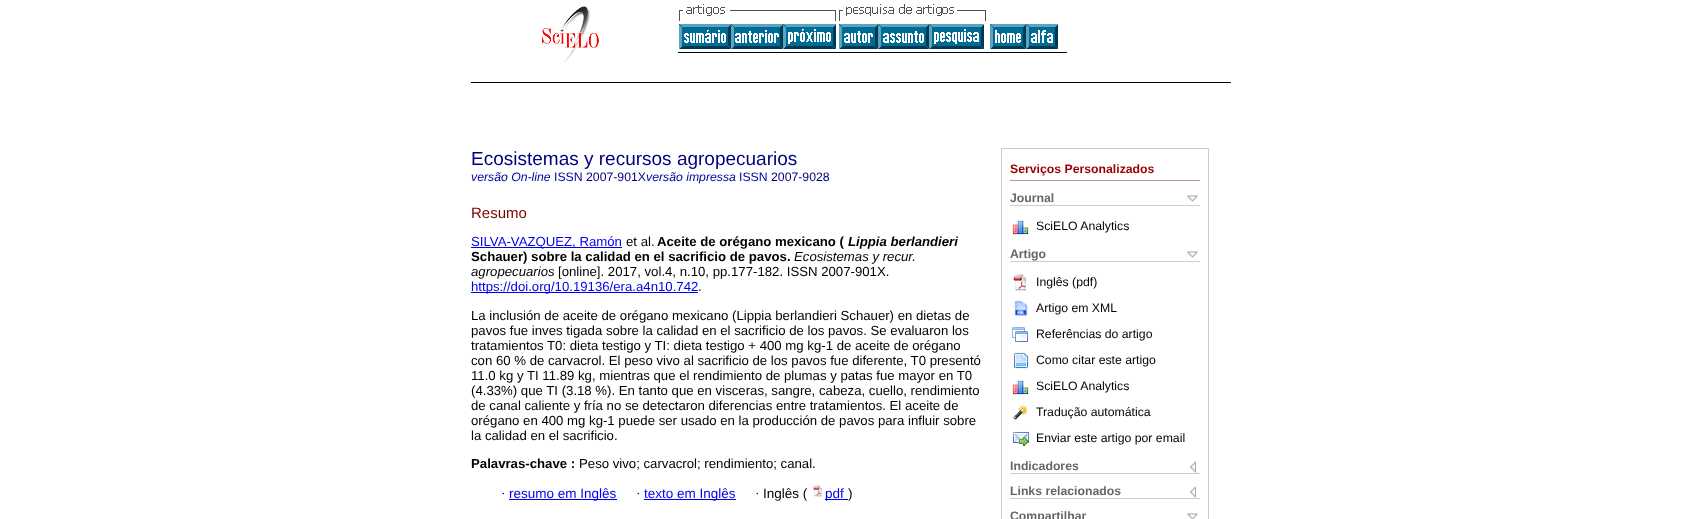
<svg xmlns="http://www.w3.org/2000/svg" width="1702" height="519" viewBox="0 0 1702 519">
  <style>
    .t1 { font: 19px Liberation Sans; fill: #000080; }
    .t2 { font: italic 12.25px Liberation Sans; fill: #0000a0; }
    .t3 { font: 12.25px Liberation Sans; fill: #0000a0; }
    .t4 { font: 12.25px Liberation Sans; fill: #000080; }
    .t5 { font: bold 12.25px Liberation Sans; fill: #900; }
    .t6 { font: bold 12.25px Liberation Sans; fill: #666; }
    .t7 { font: 12.25px Liberation Sans; fill: #000; }
    .t8 { font: 15px Liberation Sans; fill: #800000; }
    .t9 { font: 13.2px Liberation Sans; fill: #00e; }
    .t10 { font: 13.2px Liberation Sans; fill: #000; }
    .t11 { font: bold 13.2px Liberation Sans; fill: #000; }
    .t12 { font: italic bold 13.2px Liberation Sans; fill: #000; }
    .t13 { font: italic 13.2px Liberation Sans; fill: #000; }
    .t14 { font: 13.5px Liberation Serif; fill: #000080; }
    .t15 { font: 13.5px Liberation Sans; fill: #00e; }
    .t16 { font: 13.5px Liberation Sans; fill: #000; }
  </style>
  <rect width="100%" height="100%" fill="#fff"/>
  <rect x="471" y="82" width="760" height="1" fill="#000"/>
  <image x="542" y="6" width="57" height="57" href="images/1.png"/>
  <rect x="678" y="52" width="389" height="1" fill="#000"/>
  <image x="679" y="4" width="157" height="17" href="images/2.png"/>
  <image x="839" y="4" width="147" height="17" href="images/3.png"/>
  <image x="679" y="24" width="52" height="25" href="images/4.png"/>
  <image x="731" y="24" width="52" height="25" href="images/5.png"/>
  <image x="783" y="24" width="53" height="25" href="images/6.png"/>
  <image x="839" y="24" width="39" height="25" href="images/7.png"/>
  <image x="878" y="24" width="51" height="25" href="images/8.png"/>
  <image x="929" y="24" width="55" height="25" href="images/9.png"/>
  <image x="990" y="24" width="36" height="25" href="images/10.png"/>
  <image x="1026" y="24" width="32" height="25" href="images/11.png"/>
  <text x="471" y="165" class="t1">Ecosistemas y recursos agropecuarios</text>
  <text x="471" y="181" class="t2">versão On-line</text>
  <text x="554" y="181" class="t3">ISSN</text>
  <text x="586" y="181" class="t4">2007-901X</text>
  <text x="646" y="181" class="t2">versão impressa</text>
  <text x="739" y="181" class="t3">ISSN</text>
  <text x="771" y="181" class="t4">2007-9028</text>
  <rect x="1001.5" y="148.5" width="207" height="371" fill="none" stroke="#ccc"/>
  <rect x="1010" y="180" width="190" height="1" fill="#be9595"/>
  <text x="1010" y="173" class="t5">Serviços Personalizados</text>
  <image x="1187" y="195" width="11" height="7" href="images/12.png"/>
  <rect x="1010" y="205" width="190" height="1" fill="#ccc"/>
  <text x="1010" y="202" class="t6">Journal</text>
  <image x="1012" y="220" width="17" height="15" href="images/13.png"/>
  <text x="1036" y="230" class="t7">SciELO Analytics</text>
  <image x="1187" y="251" width="11" height="7" href="images/12.png"/>
  <rect x="1010" y="261" width="190" height="1" fill="#ccc"/>
  <text x="1010" y="258" class="t6">Artigo</text>
  <image x="1013" y="274" width="14" height="17" href="images/14.png"/>
  <text x="1036" y="286" class="t7">Inglês (pdf)</text>
  <image x="1014" y="300" width="14" height="17" href="images/15.png"/>
  <text x="1036" y="312" class="t7">Artigo em XML</text>
  <image x="1012" y="327" width="16" height="15" href="images/16.png"/>
  <text x="1036" y="338" class="t7">Referências do artigo</text>
  <image x="1014" y="352" width="15" height="17" href="images/17.png"/>
  <text x="1036" y="364" class="t7">Como citar este artigo</text>
  <image x="1012" y="380" width="17" height="15" href="images/13.png"/>
  <text x="1036" y="390" class="t7">SciELO Analytics</text>
  <image x="1013" y="405" width="15" height="15" href="images/18.png"/>
  <text x="1036" y="416" class="t7">Tradução automática</text>
  <image x="1010" y="431" width="21" height="15" href="images/19.png"/>
  <text x="1036" y="442" class="t7">Enviar este artigo por email</text>
  <image x="1190" y="461" width="6" height="12" href="images/20.png"/>
  <rect x="1010" y="473" width="190" height="1" fill="#ccc"/>
  <text x="1010" y="470" class="t6">Indicadores</text>
  <image x="1190" y="486" width="6" height="12" href="images/20.png"/>
  <rect x="1010" y="498" width="190" height="1" fill="#ccc"/>
  <text x="1010" y="495" class="t6">Links relacionados</text>
  <image x="1187" y="513" width="11" height="6" href="images/21.png"/>
  <text x="1010" y="520" class="t6">Compartilhar</text>
  <text x="471" y="218" class="t8">Resumo</text>
  <rect x="471" y="247" width="151" height="1" fill="#00e"/>
  <text x="471" y="246" class="t9">SILVA-VAZQUEZ, Ramón</text>
  <text x="626" y="246" class="t10">et al.</text>
  <text x="657" y="246" class="t11">Aceite de orégano mexicano (</text>
  <text x="848" y="246" class="t12">Lippia berlandieri</text>
  <text x="471" y="261" class="t11">Schauer) sobre la calidad en el sacrificio de pavos.</text>
  <text x="794" y="261" class="t13">Ecosistemas y recur.</text>
  <text x="471" y="276" class="t13">agropecuarios</text>
  <text x="558" y="276" class="t10">[online]. 2017, vol.4, n.10, pp.177-182. ISSN 2007-901X.</text>
  <rect x="471" y="292" width="227" height="1" fill="#00e"/>
  <text x="471" y="291" class="t9">https://doi.org/10.19136/era.a4n10.742</text>
  <text x="698" y="291" class="t10">.</text>
  <text x="471" y="320" class="t10">La inclusión de aceite de orégano mexicano (Lippia berlandieri Schauer) en dietas de</text>
  <text x="471" y="335" class="t10">pavos fue inves tigada sobre la calidad en el sacrificio de los pavos. Se evaluaron los</text>
  <text x="471" y="350" class="t10">tratamientos T0: dieta testigo y TI: dieta testigo + 400 mg kg-1 de aceite de orégano</text>
  <text x="471" y="365" class="t10">con 60 % de carvacrol. El peso vivo al sacrificio de los pavos fue diferente, T0 presentó</text>
  <text x="471" y="380" class="t10">11.0 kg y TI 11.89 kg, mientras que el rendimiento de plumas y patas fue mayor en T0</text>
  <text x="471" y="395" class="t10">(4.33%) que TI (3.18 %). En tanto que en visceras, sangre, cabeza, cuello, rendimiento</text>
  <text x="471" y="410" class="t10">de canal caliente y fría no se detectaron diferencias entre tratamientos. El aceite de</text>
  <text x="471" y="425" class="t10">orégano en 400 mg kg-1 puede ser usado en la producción de pavos para influir sobre</text>
  <text x="471" y="440" class="t10">la calidad en el sacrificio.</text>
  <text x="471" y="468" class="t11">Palavras-chave :</text>
  <text x="579" y="468" class="t10">Peso vivo; carvacrol; rendimiento; canal.</text>
  <text x="501" y="498" class="t14">·</text>
  <rect x="509" y="499" width="108" height="1" fill="#00e"/>
  <text x="509" y="498" class="t15">resumo em Inglês</text>
  <text x="636" y="498" class="t14">·</text>
  <rect x="644" y="499" width="92" height="1" fill="#00e"/>
  <text x="644" y="498" class="t15">texto em Inglês</text>
  <text x="755" y="498" class="t14">·</text>
  <text x="763" y="498" class="t16">Inglês (</text>
  <image x="813" y="485" width="9" height="12" href="images/22.png"/>
  <rect x="825" y="499" width="23" height="1" fill="#00e"/>
  <text x="825" y="498" class="t15">pdf</text>
  <text x="848" y="498" class="t16">)</text>
</svg>
